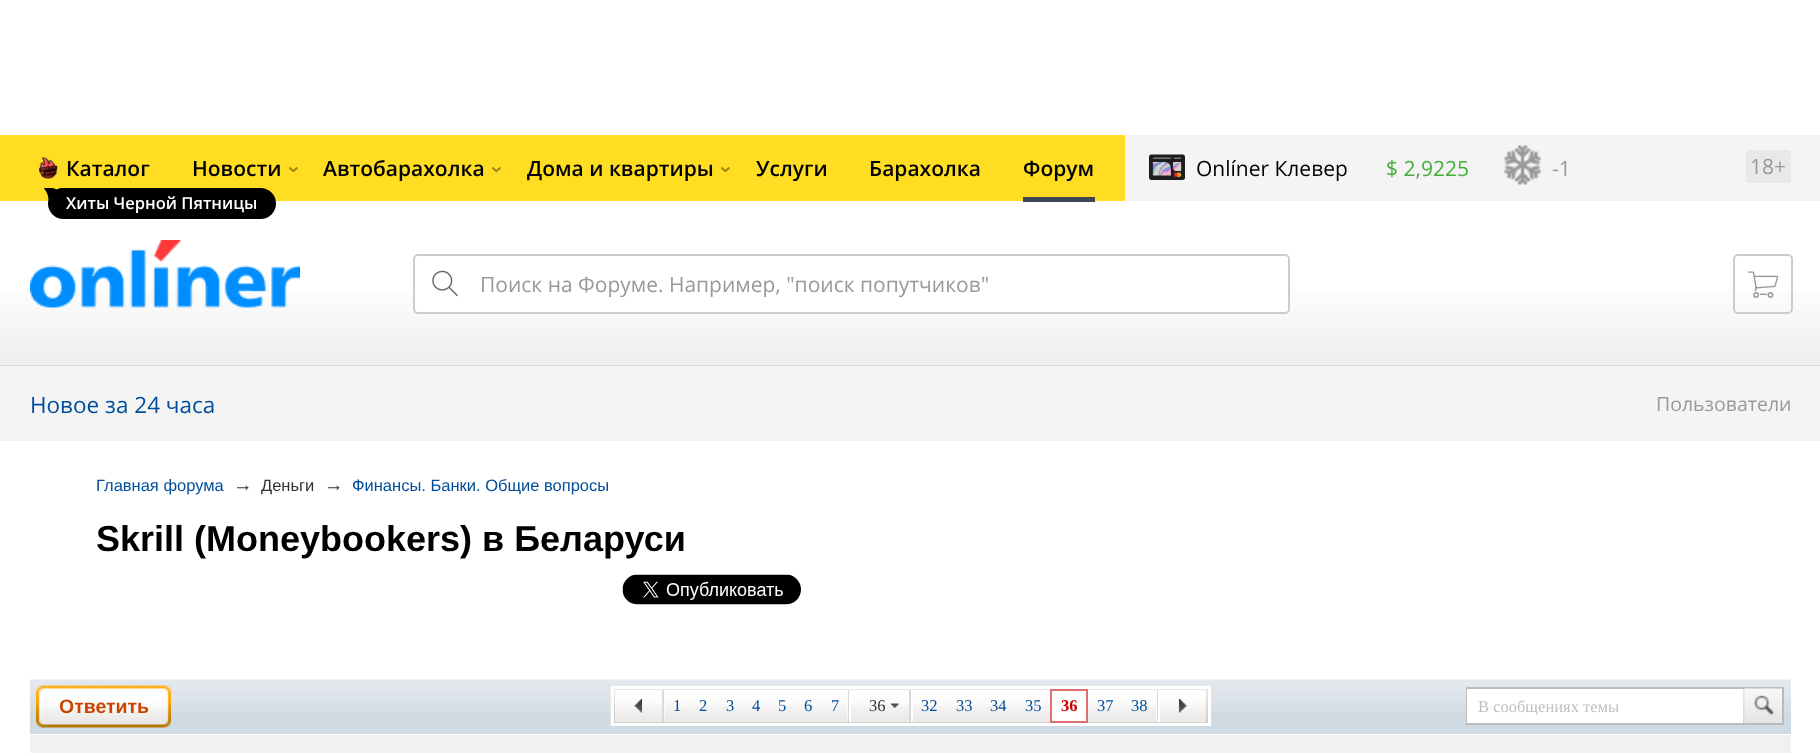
<svg xmlns="http://www.w3.org/2000/svg" width="1820" height="753" viewBox="0 0 1820 753">
  <style>
    .t1 { font: 600 21px Open Sans; fill: #000; }
    .t2 { font: 600 16.5px Open Sans; fill: #fff; }
    .t3 { font: 600 21px Open Sans; fill: #998514; }
    .t4 { font: 21px Open Sans; fill: #000; }
    .t5 { font: 21px Open Sans; fill: #44ae3b; }
    .t6 { font: 21px Open Sans; fill: #999; }
    .t7 { font: 22.5px Open Sans; fill: #004d99; }
    .t8 { font: 19.5px Open Sans; fill: #999; }
    .t9 { font: 16.5px Liberation Sans; fill: #004d99; }
    .t10 { font: 19.5px Liberation Sans; fill: #333; }
    .t11 { font: 16.5px Liberation Sans; fill: #333; }
    .t12 { font: bold 36px Liberation Sans; fill: #000; }
    .t13 { font: bold 19.5px Liberation Sans; fill: #cb4300; }
    .t14 { font: 16.5px Liberation Serif; fill: #004d99; }
    .t15 { font: 16.5px Liberation Serif; fill: #333; }
    .t16 { font: bold 16.5px Liberation Serif; fill: #cb0000; }
    .t17 { font: 16.5px Liberation Serif; fill: #bfbfbf; }
  </style>
  <defs>
    <linearGradient id="g1" gradientUnits="userSpaceOnUse" x1="911" y1="135" x2="911" y2="420"><stop offset="0" stop-color="#fff"/><stop offset="0.5" stop-color="#fff"/><stop offset="1" stop-color="#e3e3e3"/></linearGradient>
  </defs>
  <rect width="100%" height="100%" fill="#fff"/>
  <rect x="0" y="290" width="1820" height="75" fill="url(#g1)"/>
  <rect x="1125" y="135" width="695" height="66" fill="#f4f4f4"/>
  <rect x="0" y="135" width="1125" height="66" fill="#fd2"/>
  <text x="66" y="176" class="t1">Каталог</text>
  <image x="39" y="157" width="19" height="22" href="images/1.png"/>
  <rect x="48" y="188" width="228" height="31" rx="15.5" fill="#000"/>
  <image x="44" y="188" width="19" height="12" href="images/2.png"/>
  <text x="66" y="209" class="t2">Хиты Черной Пятницы</text>
  <text x="323" y="176" class="t1">Автобарахолка</text>
  <text x="502" y="173" transform="rotate(-90 502 173)" class="t3">‹</text>
  <text x="1023" y="176" class="t1">Форум</text>
  <rect x="1023" y="197" width="72" height="5" fill="#3e4753"/>
  <text x="192" y="176" class="t1">Новости</text>
  <text x="299" y="173" transform="rotate(-90 299 173)" class="t3">‹</text>
  <text x="527" y="176" class="t1">Дома и квартиры</text>
  <text x="731" y="173" transform="rotate(-90 731 173)" class="t3">‹</text>
  <text x="756" y="176" class="t1">Услуги</text>
  <text x="869" y="176" class="t1">Барахолка</text>
  <image x="1149" y="154" width="36" height="26" href="images/3.png"/>
  <text x="1196" y="176" class="t4">Onlíner Клевер</text>
  <text x="1386" y="176" class="t5">$ 2,9225</text>
  <image x="1504" y="145" width="38" height="40" href="images/4.png"/>
  <text x="1552" y="176" class="t6">-1</text>
  <rect x="1746" y="150" width="45" height="33" rx="3" fill="#e8e8e8"/>
  <text x="1750" y="174" class="t6">18+</text>
  <image x="30" y="240" width="270" height="68" href="images/5.png"/>
  <rect x="413" y="254" width="877" height="60" rx="5" fill="#fff"/>
  <image x="432" y="270" width="26" height="27" href="images/6.png"/>
  <rect x="414" y="255" width="875" height="58" rx="4" fill="none" stroke="#ccc" stroke-width="2"/>
  <text x="480" y="292" class="t6">Поиск на Форуме. Например, "поиск попутчиков"</text>
  <rect x="1734" y="255" width="58" height="58" rx="4" fill="none" stroke="#ccc" stroke-width="2"/>
  <image x="1748" y="271" width="31" height="27" href="images/7.png"/>
  <rect x="0" y="365" width="1820" height="1" fill="#d8d8d8"/>
  <rect x="0" y="366" width="1820" height="75" fill="#f4f4f4"/>
  <text x="30" y="413" class="t7">Новое за 24 часа</text>
  <text x="1656" y="411" class="t8">Пользователи</text>
  <text x="96" y="491" class="t9">Главная форума</text>
  <text x="233" y="491" class="t10">→</text>
  <text x="261" y="491" class="t11">Деньги</text>
  <text x="324" y="491" class="t10">→</text>
  <text x="352" y="491" class="t9">Финансы. Банки. Общие вопросы</text>
  <text x="96" y="551" class="t12">Skrill (Moneybookers) в Беларуси</text>
  <image x="622" y="574" width="179" height="31" href="images/8.png"/>
  <rect x="30" y="712" width="1761" height="22" fill="#d0dae2"/>
  <image x="30" y="679" width="1761" height="33" href="images/9.png"/>
  <image x="36" y="685" width="11" height="43" href="images/10.png"/>
  <image x="46" y="685" width="125" height="43" href="images/11.png"/>
  <text x="59" y="713" class="t13">Ответить</text>
  <image x="610" y="688" width="598" height="38" href="images/12.png"/>
  <rect x="612.5" y="687.5" width="597" height="37" fill="none" stroke="#fff" stroke-width="3"/>
  <rect x="615" y="721" width="47" height="1" fill="#f9f9f9"/>
  <image x="615" y="690" width="47" height="32" href="images/13.png"/>
  <rect x="664" y="690" width="1" height="32" fill="#fff"/>
  <rect x="662" y="690" width="2" height="32" fill="#dbdada"/>
  <image x="634" y="699" width="8" height="15" href="images/14.png"/>
  <rect x="665" y="721" width="52" height="1" fill="#f9f9f9"/>
  <image x="664" y="690" width="26" height="32" href="images/15.png"/>
  <text x="673" y="711" class="t14">1</text>
  <image x="690" y="690" width="27" height="32" href="images/16.png"/>
  <text x="699" y="711" class="t14">2</text>
  <rect x="717" y="690" width="53" height="32" fill="#f9f9f9"/>
  <image x="717" y="690" width="26" height="32" href="images/17.png"/>
  <text x="726" y="711" class="t14">3</text>
  <image x="742" y="690" width="28" height="32" href="images/18.png"/>
  <text x="752" y="711" class="t14">4</text>
  <rect x="770" y="721" width="52" height="1" fill="#f9f9f9"/>
  <image x="769" y="690" width="26" height="32" href="images/19.png"/>
  <text x="778" y="711" class="t14">5</text>
  <image x="795" y="690" width="27" height="32" href="images/16.png"/>
  <text x="804" y="711" class="t14">6</text>
  <rect x="822" y="690" width="26" height="32" fill="#f9f9f9"/>
  <image x="822" y="690" width="26" height="32" href="images/17.png"/>
  <text x="831" y="711" class="t14">7</text>
  <rect x="851" y="721" width="58" height="1" fill="#f9f9f9"/>
  <image x="847" y="690" width="62" height="32" href="images/20.png"/>
  <rect x="911" y="690" width="2" height="32" fill="#fff"/>
  <rect x="848" y="690" width="1" height="32" fill="#d8d7d7"/>
  <rect x="909" y="690" width="2" height="32" fill="#d8d7d7"/>
  <rect x="849" y="690" width="2" height="32" fill="#fff"/>
  <text x="869" y="711" class="t15">36</text>
  <image x="891" y="703" width="8" height="5" href="images/21.png"/>
  <rect x="913" y="690" width="34" height="32" fill="#f9f9f9"/>
  <image x="913" y="690" width="34" height="32" href="images/22.png"/>
  <text x="921" y="711" class="t14">32</text>
  <rect x="947" y="721" width="34" height="1" fill="#f9f9f9"/>
  <image x="946" y="690" width="35" height="32" href="images/23.png"/>
  <text x="956" y="711" class="t14">33</text>
  <rect x="981" y="690" width="35" height="32" fill="#f9f9f9"/>
  <image x="981" y="690" width="35" height="32" href="images/24.png"/>
  <text x="990" y="711" class="t14">34</text>
  <rect x="1016" y="721" width="34" height="1" fill="#f9f9f9"/>
  <image x="1015" y="690" width="35" height="32" href="images/23.png"/>
  <text x="1025" y="711" class="t14">35</text>
  <rect x="1051" y="690" width="36" height="32" fill="#fff" stroke="#de6f6f" stroke-width="2"/>
  <text x="1061" y="711" class="t16">36</text>
  <rect x="1088" y="721" width="34" height="1" fill="#f9f9f9"/>
  <image x="1088" y="690" width="34" height="32" href="images/25.png"/>
  <text x="1097" y="711" class="t14">37</text>
  <rect x="1122" y="690" width="35" height="32" fill="#f9f9f9"/>
  <image x="1122" y="690" width="35" height="32" href="images/24.png"/>
  <text x="1131" y="711" class="t14">38</text>
  <rect x="1160" y="721" width="46" height="1" fill="#f9f9f9"/>
  <image x="1156" y="690" width="50" height="32" href="images/26.png"/>
  <rect x="1157" y="690" width="1" height="32" fill="#dbdada"/>
  <rect x="1158" y="690" width="2" height="32" fill="#fff"/>
  <image x="1179" y="699" width="8" height="15" href="images/27.png"/>
  <rect x="1467" y="688" width="316" height="36" fill="none" stroke="#bbb" stroke-width="2"/>
  <rect x="1467" y="689" width="276" height="34" fill="#fff"/>
  <text x="1478" y="712" class="t17">В сообщениях темы</text>
  <image x="1744" y="688" width="38" height="35" href="images/28.png"/>
  <rect x="30" y="735" width="1761" height="18" fill="#f0f1f2"/>
</svg>
